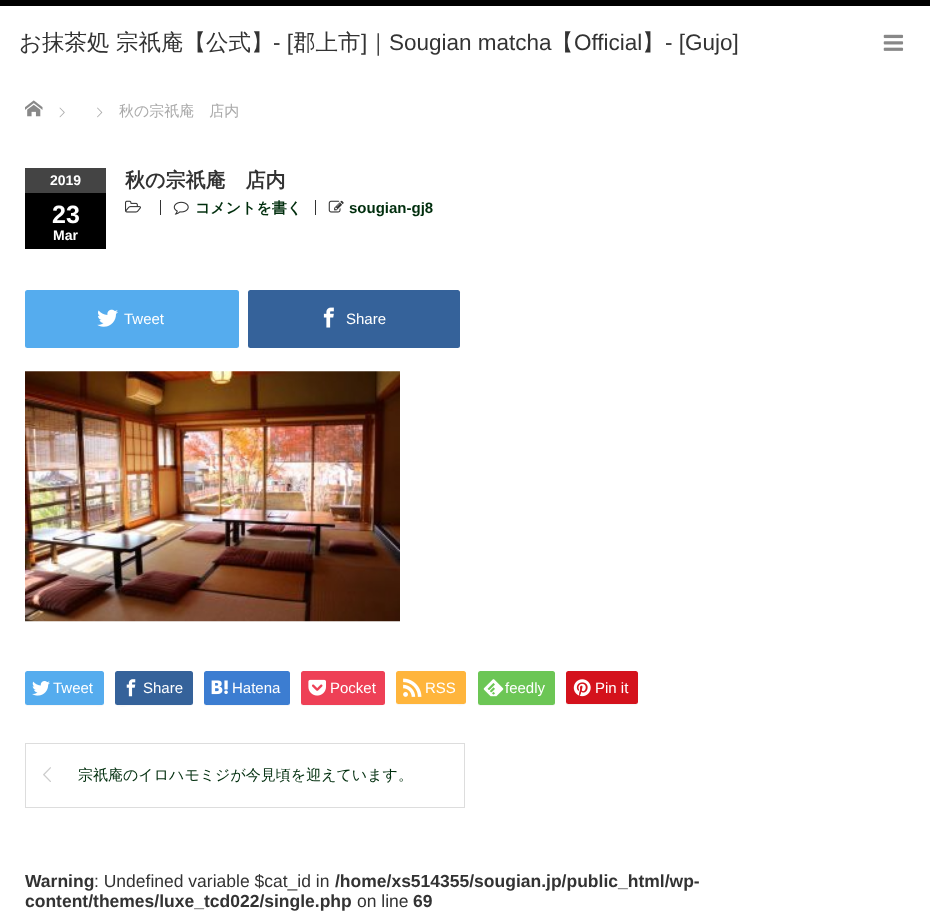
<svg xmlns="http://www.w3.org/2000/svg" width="930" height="919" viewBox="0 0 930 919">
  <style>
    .t1 { font: 500 22.5px WenQuanYi Zen Hei; fill: #333; }
    .t2 { font: 22.5px Liberation Sans; fill: #333; }
    .t3 { font: 500 15px WenQuanYi Zen Hei; fill: #aaa; }
    .t4 { font: bold 20px WenQuanYi Zen Hei; fill: #333; }
    .t5 { font: bold 15px WenQuanYi Zen Hei; fill: #002e0d; }
    .t6 { font: bold 15px Liberation Sans; fill: #002e0d; }
    .t7 { font: 15px Liberation Sans; fill: #fff; }
    .t8 { font: 500 15px WenQuanYi Zen Hei; fill: #002e0d; }
    .t9 { font: bold 14px Liberation Sans; fill: #fff; }
    .t10 { font: bold 25px Liberation Sans; fill: #fff; }
    .t11 { font: bold 17.5px Liberation Sans; fill: #333; }
    .t12 { font: 17.5px Liberation Sans; fill: #333; }
  </style>
  <rect width="100%" height="100%" fill="#fff"/>
  <rect x="0" y="0" width="930" height="6" fill="#000"/>
  <text x="19" y="50" class="t1">お抹茶処</text>
  <text x="116" y="50" class="t1">宗祇庵【公式】</text>
  <text x="273" y="50" class="t2">- [</text>
  <text x="293" y="50" class="t1">郡上市</text>
  <text x="361" y="50" class="t2">]</text>
  <text x="367" y="50" class="t1">｜</text>
  <text x="389" y="50" class="t2">Sougian matcha</text>
  <text x="551" y="50" class="t1">【</text>
  <text x="574" y="50" class="t2">Official</text>
  <text x="642" y="50" class="t1">】</text>
  <text x="665" y="50" class="t2">- [Gujo]</text>
  <image x="883" y="34" width="21" height="17" href="images/1.png"/>
  <image x="25" y="100" width="18" height="17" href="images/2.png"/>
  <image x="59" y="107" width="6" height="11" href="images/3.png"/>
  <image x="97" y="107" width="6" height="11" href="images/4.png"/>
  <text x="119" y="116" class="t3">秋の宗祇庵　店内</text>
  <text x="125" y="187" class="t4">秋の宗祇庵　店内</text>
  <rect x="160" y="200" width="1" height="15" fill="#333"/>
  <image x="125" y="200" width="16" height="13" href="images/5.png"/>
  <rect x="315" y="200" width="1" height="15" fill="#333"/>
  <image x="173" y="201" width="16" height="14" href="images/6.png"/>
  <text x="195" y="213" class="t5">コメントを書く</text>
  <image x="328" y="200" width="16" height="13" href="images/7.png"/>
  <text x="349" y="213" class="t6">sougian-gj8</text>
  <rect x="25" y="290" width="214" height="58" rx="2.5" fill="#55acee"/>
  <image x="97" y="309" width="21" height="18" href="images/8.png"/>
  <text x="124" y="324" class="t7">Tweet</text>
  <rect x="248" y="290" width="212" height="58" rx="2.5" fill="#35629a"/>
  <image x="323" y="307" width="11" height="21" href="images/9.png"/>
  <text x="346" y="324" class="t7">Share</text>
  <image x="25" y="371" width="375" height="251" href="images/10.png"/>
  <path d="M25 702C25 704 25 705 27 706H89C106 706 104 709 104 694V674V702C104 704 103 705 101 705H28C26 705 25 704 25 702Z" fill="#f7f7f7"/>
  <rect x="25" y="671" width="79" height="34" rx="2.5" fill="#55acee"/>
  <image x="32" y="681" width="18" height="15" href="images/11.png"/>
  <text x="53" y="693" class="t7">Tweet</text>
  <path d="M115 702C115 709 126 706 130 706H178C197 706 193 708 193 690C193 687 194 676 192 674V702C192 704 191 705 190 705H118C116 705 115 704 115 702Z" fill="#f7f7f7"/>
  <rect x="115" y="671" width="78" height="34" rx="2.5" fill="#35629a"/>
  <image x="126" y="679" width="10" height="18" href="images/12.png"/>
  <text x="143" y="693" class="t7">Share</text>
  <path d="M204 704C204 705 205 706 206 706H288C289 706 290 705 290 704V702C290 704 289 705 288 705H206C205 705 204 704 204 704Z" fill="#f7f7f7"/>
  <rect x="204" y="671" width="86" height="34" rx="2.5" fill="#3c7dd1"/>
  <image x="211" y="680" width="17" height="15" href="images/13.png"/>
  <text x="232" y="693" class="t7">Hatena</text>
  <path d="M301 674V694C301 709 299 706 317 706H343C348 706 383 707 384 705L385 702C385 704 384 705 382 705H304C302 705 301 704 301 702Z" fill="#f7f7f7"/>
  <rect x="301" y="671" width="84" height="34" rx="2.5" fill="#ee4056"/>
  <image x="308" y="679" width="18" height="17" href="images/14.png"/>
  <text x="330" y="693" class="t7">Pocket</text>
  <path d="M396 674V694C396 707 394 705 409 705H453C458 705 466 707 466 702C466 703 465 704 464 704H399C397 704 396 703 396 701Z" fill="#f7f7f7"/>
  <rect x="396" y="671" width="70" height="33" rx="2.5" fill="#ffb53c"/>
  <image x="403" y="678" width="19" height="19" href="images/15.png"/>
  <text x="425" y="693" class="t7">RSS</text>
  <path d="M478 704C478 705 479 706 480 706H552C554 706 555 705 555 704V702C555 704 554 705 552 705H480Z" fill="#f7f7f7"/>
  <rect x="478" y="671" width="77" height="34" rx="2.5" fill="#6cc655"/>
  <image x="483" y="679" width="21" height="18" href="images/16.png"/>
  <text x="505" y="693" class="t7">feedly</text>
  <path d="M566 674V694C566 708 564 705 580 705H624C640 705 638 708 638 694C638 690 639 676 638 674V701C638 703 636 704 635 704H569C567 704 566 703 566 701Z" fill="#f7f7f7"/>
  <rect x="566" y="671" width="72" height="33" rx="2.5" fill="#d4121c"/>
  <image x="573" y="679" width="18" height="18" href="images/17.png"/>
  <text x="595" y="693" class="t7">Pin it</text>
  <rect x="25.5" y="743.5" width="439" height="64" fill="none" stroke="#ddd"/>
  <image x="43" y="767" width="8" height="15" href="images/18.png"/>
  <text x="78" y="780" class="t8">宗祇庵のイロハモミジが今見頃を迎えています。</text>
  <rect x="25" y="193" width="81" height="56" fill="#000"/>
  <rect x="25" y="168" width="81" height="25" fill="#444"/>
  <text x="50" y="185" class="t9">2019</text>
  <text x="52" y="223" class="t10">23</text>
  <text x="53" y="240" class="t9">Mar</text>
  <text x="25" y="887" class="t11">Warning</text>
  <text x="94" y="887" class="t12">: Undefined variable $cat_id in</text>
  <text x="335" y="887" class="t11">/home/xs514355/sougian.jp/public_html/wp-</text>
  <text x="25" y="907" class="t11">content/themes/luxe_tcd022/single.php</text>
  <text x="357" y="907" class="t12">on line</text>
  <text x="413" y="907" class="t11">69</text>
</svg>
